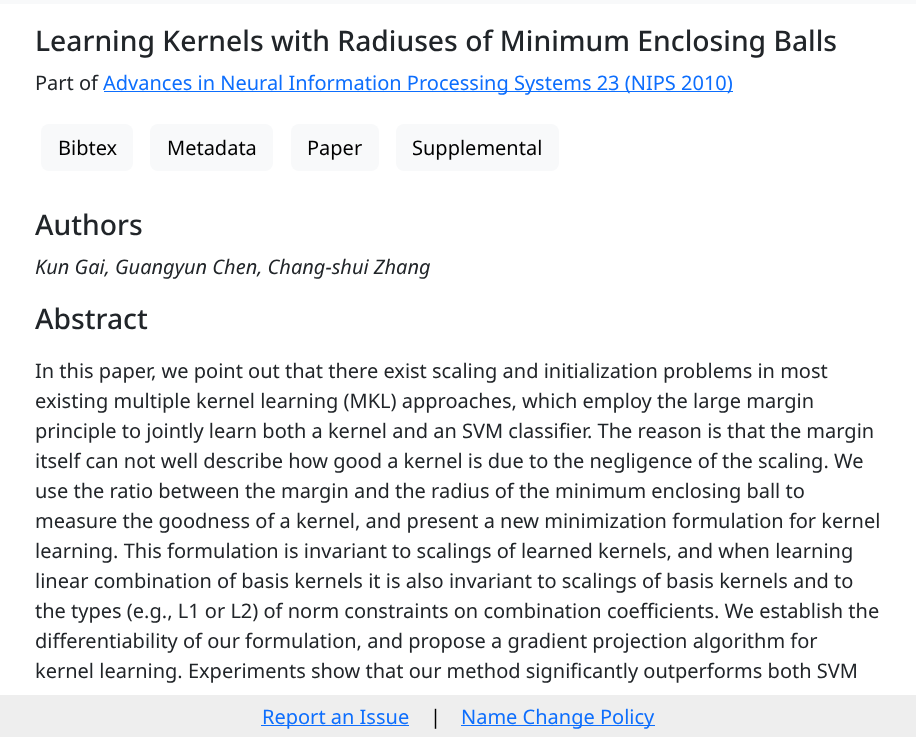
<svg xmlns="http://www.w3.org/2000/svg" width="916" height="737" viewBox="0 0 916 737">
  <style>
    .t1 { font: 500 28.25px Noto Sans; fill: #212529; }
    .t2 { font: 20px Noto Sans; fill: #212529; }
    .t3 { font: 20px Noto Sans; fill: #0d6efd; }
    .t4 { font: 20px Noto Sans; fill: #000; }
    .t5 { font: italic 20px Noto Sans; fill: #212529; }
  </style>
  <rect width="100%" height="100%" fill="#fff"/>
  <rect x="0" y="0" width="916" height="4" fill="#f8f9fa"/>
  <text x="35" y="51" class="t1">Learning Kernels with Radiuses of Minimum Enclosing Balls</text>
  <text x="35" y="90" class="t2">Part of</text>
  <rect x="104" y="91" width="629" height="1" fill="#0d6efd"/>
  <text x="103" y="90" class="t3">Advances in Neural Information Processing Systems 23 (NIPS 2010)</text>
  <rect x="41" y="124" width="92" height="47" rx="8" fill="#f8f9fa"/>
  <text x="58" y="155" class="t4">Bibtex</text>
  <rect x="150" y="124" width="123" height="47" rx="8" fill="#f8f9fa"/>
  <text x="167" y="155" class="t4">Metadata</text>
  <rect x="291" y="124" width="88" height="47" rx="8" fill="#f8f9fa"/>
  <text x="307" y="155" class="t4">Paper</text>
  <rect x="396" y="124" width="163" height="47" rx="8" fill="#f8f9fa"/>
  <text x="412" y="155" class="t4">Supplemental</text>
  <text x="35" y="235" class="t1">Authors</text>
  <text x="35" y="274" class="t5">Kun Gai, Guangyun Chen, Chang-shui Zhang</text>
  <text x="35" y="329" class="t1">Abstract</text>
  <text x="35" y="378" class="t2">In this paper, we point out that there exist scaling and initialization problems in most</text>
  <text x="35" y="408" class="t2">existing multiple kernel learning (MKL) approaches, which employ the large margin</text>
  <text x="35" y="438" class="t2">principle to jointly learn both a kernel and an SVM classifier. The reason is that the margin</text>
  <text x="35" y="468" class="t2">itself can not well describe how good a kernel is due to the negligence of the scaling. We</text>
  <text x="35" y="498" class="t2">use the ratio between the margin and the radius of the minimum enclosing ball to</text>
  <text x="35" y="528" class="t2">measure the goodness of a kernel, and present a new minimization formulation for kernel</text>
  <text x="35" y="558" class="t2">learning. This formulation is invariant to scalings of learned kernels, and when learning</text>
  <text x="35" y="588" class="t2">linear combination of basis kernels it is also invariant to scalings of basis kernels and to</text>
  <text x="35" y="618" class="t2">the types (e.g., L1 or L2) of norm constraints on combination coefficients. We establish the</text>
  <text x="35" y="648" class="t2">differentiability of our formulation, and propose a gradient projection algorithm for</text>
  <text x="35" y="678" class="t2">kernel learning. Experiments show that our method significantly outperforms both SVM</text>
  <rect x="0" y="695" width="916" height="42" fill="#eee"/>
  <rect x="261" y="725" width="148" height="1" fill="#0d6efd"/>
  <text x="262" y="724" class="t3">Report an Issue</text>
  <text x="430" y="724" class="t4">|</text>
  <rect x="461" y="725" width="194" height="1" fill="#0d6efd"/>
  <text x="461" y="724" class="t3">Name Change Policy</text>
</svg>
